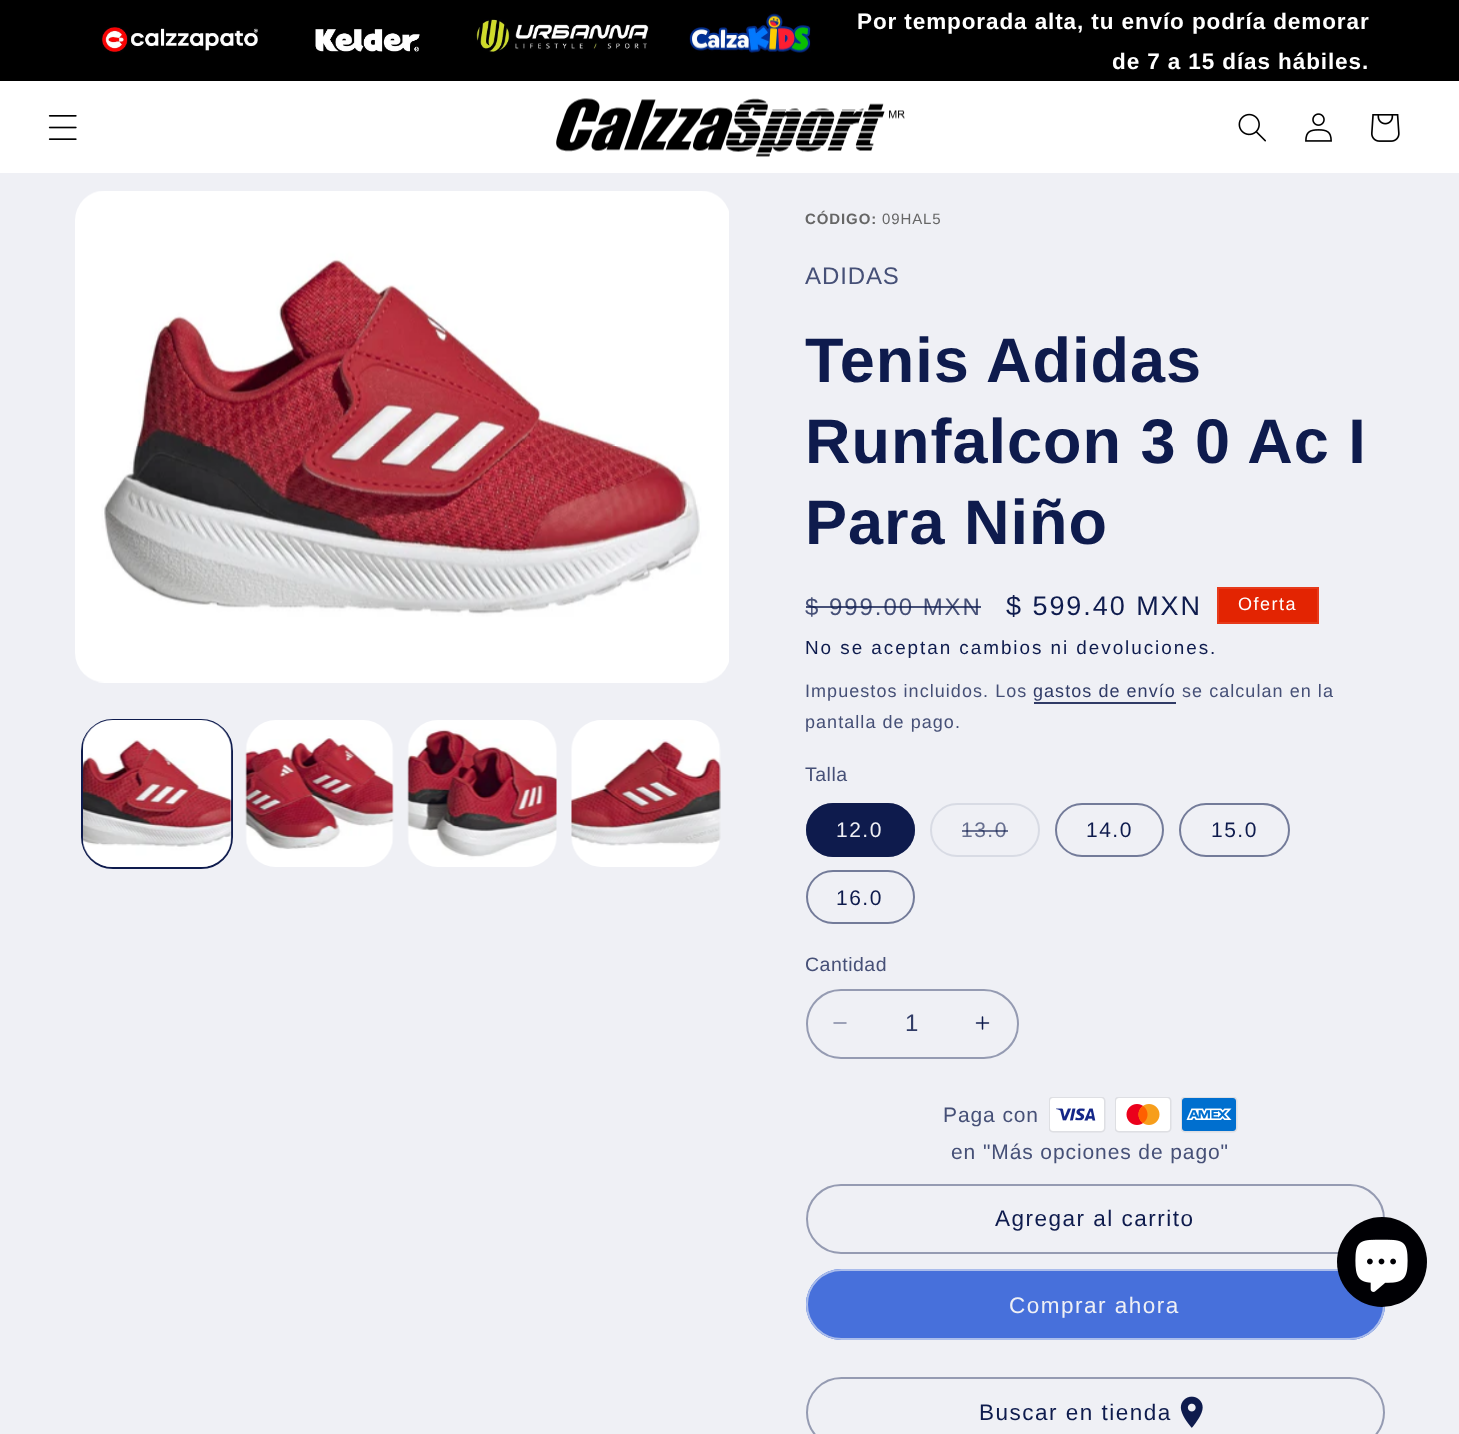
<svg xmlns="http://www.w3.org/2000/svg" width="1459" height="1434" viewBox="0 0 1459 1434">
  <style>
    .t1 { font: bold 22.5px Arimo; letter-spacing: 0.9px; fill: #fff; }
    .t2 { font: bold 15px Arimo; letter-spacing: 0.9px; fill: #666; }
    .t3 { font: 15px Arimo; letter-spacing: 0.9px; fill: #666; }
    .t4 { font: 24px Arimo; letter-spacing: 0.9px; fill: #465077; }
    .t5 { font: bold 63px Arimo; letter-spacing: 1px; fill: #0e1b4d; }
    .t6 { font: 24px Arimo; letter-spacing: 1.95px; fill: #465077; }
    .t7 { font: 27px Arimo; letter-spacing: 1.95px; fill: #0e1b4d; }
    .t8 { font: 18px Arimo; letter-spacing: 1.5px; fill: #fff; }
    .t9 { font: 18.9px Arimo; letter-spacing: 1.95px; fill: #0e1b4d; }
    .t10 { font: 18px Arimo; letter-spacing: 1.05px; fill: #465077; }
    .t11 { font: 18px Arimo; letter-spacing: 1.05px; fill: #303b66; }
    .t12 { font: 19.5px Arimo; letter-spacing: 0.5px; fill: #465077; }
    .t13 { font: 21px Arimo; letter-spacing: 1.5px; fill: #eff0f5; }
    .t14 { font: 21px Arimo; letter-spacing: 1.5px; fill: #687090; }
    .t15 { font: 21px Arimo; letter-spacing: 1.5px; fill: #0e1b4d; }
    .t16 { font: 24px Arimo; fill: #303b66; }
    .t17 { font: 21px Arimo; letter-spacing: 0.9px; fill: #465077; }
    .t18 { font: 22.5px Arimo; letter-spacing: 1.5px; fill: #0e1b4d; }
    .t19 { font: 22.5px Arimo; letter-spacing: 1.5px; fill: #eff0f5; }
  </style>
  <rect width="100%" height="100%" fill="#eff0f5"/>
  <rect x="0" y="0" width="1459" height="81" fill="#000"/>
  <image x="101" y="27" width="157" height="26" href="images/1.png"/>
  <image x="315" y="29" width="105" height="23" href="images/2.png"/>
  <image x="475" y="19" width="174" height="34" href="images/3.png"/>
  <image x="689" y="13" width="122" height="40" href="images/4.png"/>
  <text x="857" y="29" class="t1">Por temporada alta, tu envío podría demorar</text>
  <text x="1112" y="69" class="t1">de 7 a 15 días hábiles.</text>
  <rect x="0" y="81" width="1459" height="92" fill="#fff"/>
  <image x="48" y="115" width="29" height="25" href="images/5.png"/>
  <image x="556" y="98" width="349" height="59" href="images/6.png"/>
  <image x="1238" y="113" width="28" height="29" href="images/7.png"/>
  <image x="1305" y="113" width="27" height="29" href="images/8.png"/>
  <image x="1371" y="114" width="29" height="28" href="images/9.png"/>
  <image x="75" y="191" width="654" height="492" href="images/10.png"/>
  <rect x="82" y="720" width="150" height="148" rx="31" fill="none" stroke="#0e1b4d" stroke-width="2"/>
  <image x="83" y="720" width="149" height="147" href="images/11.png"/>
  <image x="245" y="720" width="149" height="147" href="images/12.png"/>
  <image x="407" y="720" width="150" height="147" href="images/13.png"/>
  <image x="571" y="720" width="150" height="147" href="images/14.png"/>
  <text x="805" y="224" class="t2">CÓDIGO:</text>
  <text x="882" y="224" class="t3">09HAL5</text>
  <text x="805" y="284" class="t4">ADIDAS</text>
  <text x="805" y="382" class="t5">Tenis Adidas</text>
  <text x="805" y="463" class="t5">Runfalcon 3 0 Ac I</text>
  <text x="805" y="544" class="t5">Para Niño</text>
  <text x="805" y="615" class="t6">$ 999.00 MXN</text>
  <rect x="806" y="606" width="175" height="2" fill="#0e1b4dbf"/>
  <text x="1006" y="615" class="t7">$ 599.40 MXN</text>
  <rect x="1218" y="588" width="100" height="35" fill="#e32402" stroke="#e63a1b" stroke-width="2"/>
  <text x="1238" y="610" class="t8">Oferta</text>
  <text x="805" y="654" class="t9">No se aceptan cambios ni devoluciones.</text>
  <text x="805" y="697" class="t10">Impuestos incluidos. Los</text>
  <text x="1033" y="697" class="t11">gastos de envío</text>
  <rect x="1034" y="702" width="142" height="2" fill="#303b66"/>
  <text x="1182" y="697" class="t10">se calculan en la</text>
  <text x="805" y="728" class="t10">pantalla de pago.</text>
  <text x="805" y="781" class="t12">Talla</text>
  <rect x="806" y="803" width="109" height="54" rx="27" fill="#0e1b4d"/>
  <rect x="807" y="804" width="107" height="52" rx="26" fill="none" stroke="#0e1b4d8c" stroke-width="2"/>
  <text x="836" y="837" class="t13">12.0</text>
  <rect x="931" y="804" width="108" height="52" rx="26" fill="none" stroke="#d8dbe4" stroke-width="2"/>
  <text x="961" y="837" class="t14">13.0</text>
  <rect x="962" y="830" width="46" height="2" fill="#0e1b4d99"/>
  <rect x="1056" y="804" width="107" height="52" rx="26" fill="none" stroke="#737b99" stroke-width="2"/>
  <text x="1086" y="837" class="t15">14.0</text>
  <rect x="1180" y="804" width="109" height="52" rx="26" fill="none" stroke="#737b99" stroke-width="2"/>
  <text x="1211" y="837" class="t15">15.0</text>
  <rect x="807" y="871" width="107" height="52" rx="26" fill="none" stroke="#737b99" stroke-width="2"/>
  <text x="836" y="905" class="t15">16.0</text>
  <text x="805" y="971" class="t12">Cantidad</text>
  <image x="833" y="1022" width="14" height="2" href="images/15.png"/>
  <image x="975" y="1016" width="15" height="14" href="images/16.png"/>
  <rect x="807" y="990" width="211" height="68" rx="34" fill="none" stroke="#959bb2" stroke-width="2"/>
  <text x="905" y="1031" class="t16">1</text>
  <text x="943" y="1122" class="t17">Paga con</text>
  <image x="1049" y="1097" width="57" height="36" href="images/17.png"/>
  <image x="1115" y="1097" width="57" height="36" href="images/18.png"/>
  <image x="1181" y="1097" width="57" height="36" href="images/19.png"/>
  <text x="951" y="1159" class="t17">en "Más opciones de pago"</text>
  <rect x="807" y="1185" width="577" height="68" rx="34" fill="none" stroke="#959bb2" stroke-width="2"/>
  <text x="995" y="1226" class="t18">Agregar al carrito</text>
  <rect x="806" y="1269" width="579" height="71" rx="35.5" fill="#4770db"/>
  <rect x="807" y="1270" width="577" height="69" rx="34.5" fill="none" stroke="#4770db" stroke-width="2"/>
  <rect x="807" y="1270" width="577" height="69" rx="34.5" fill="none" stroke="#eff0f599" stroke-width="2"/>
  <text x="1009" y="1313" class="t19">Comprar ahora</text>
  <image x="1180" y="1396" width="23" height="32" href="images/20.png"/>
  <rect x="807" y="1378" width="577" height="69" rx="34.5" fill="none" stroke="#959bb2" stroke-width="2"/>
  <text x="979" y="1420" class="t18">Buscar en tienda</text>
  <circle cx="1382" cy="1262" r="45" fill="#000004"/>
  <image x="1355" y="1239" width="53" height="53" href="images/21.png"/>
</svg>
